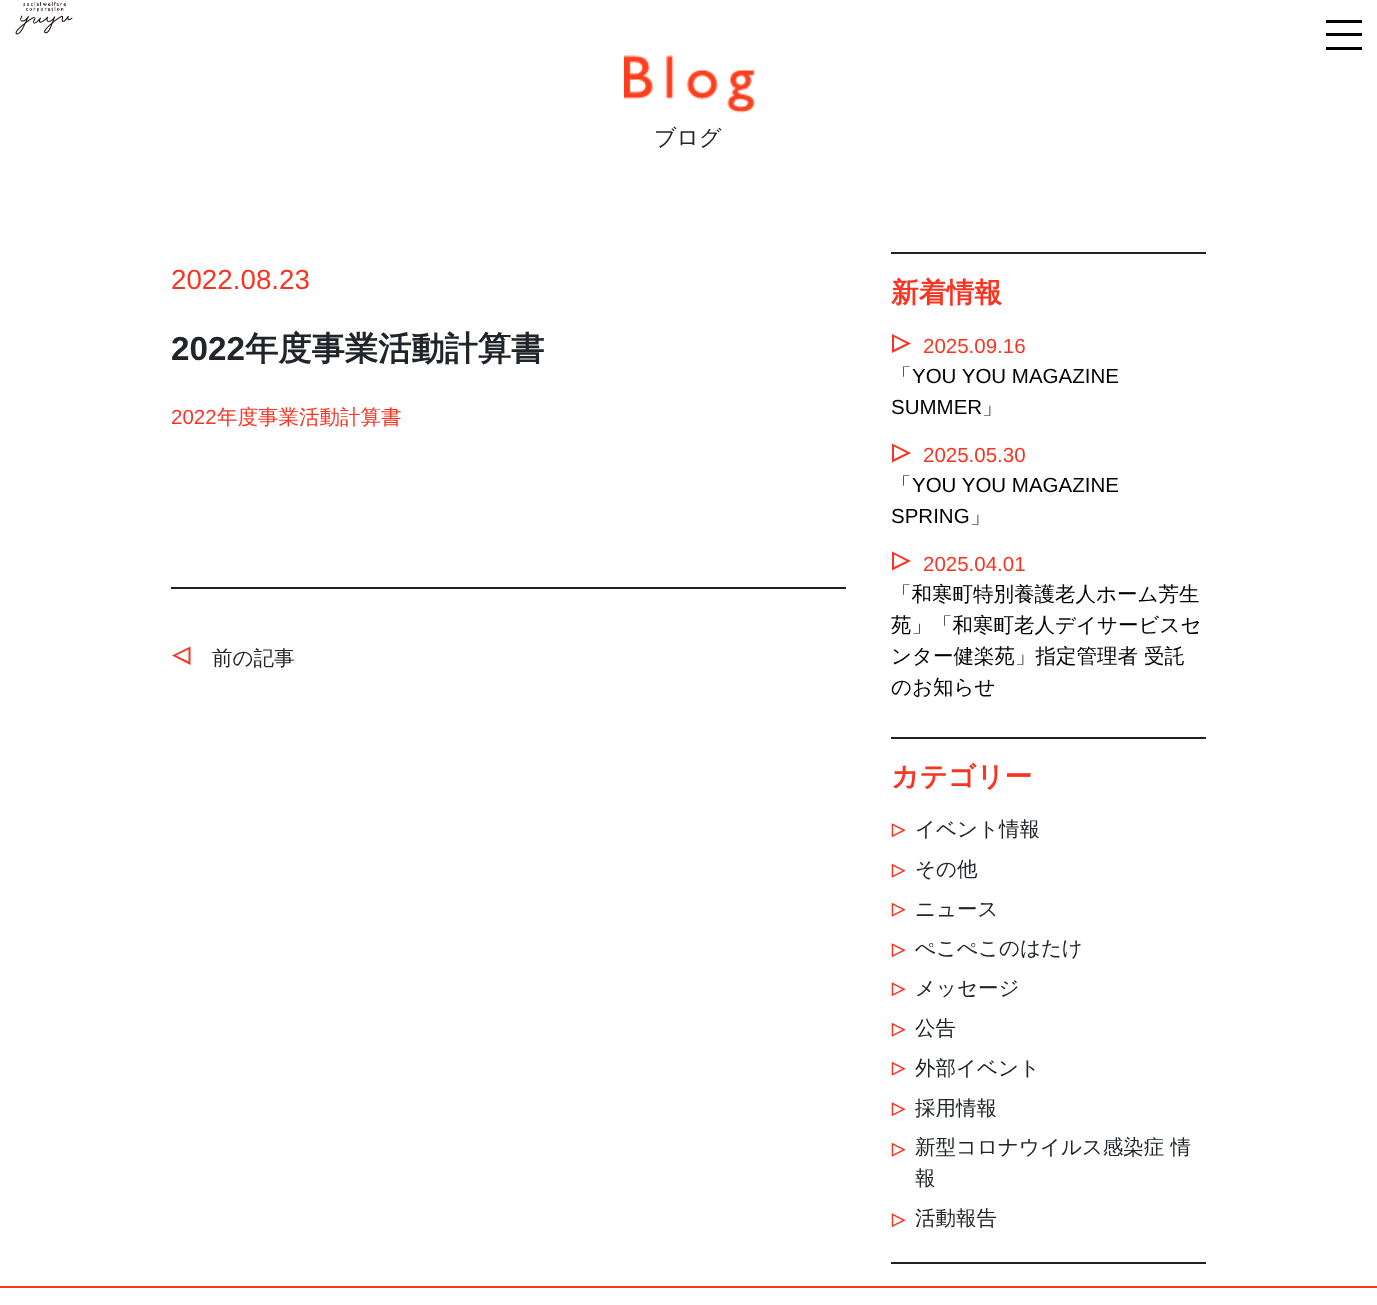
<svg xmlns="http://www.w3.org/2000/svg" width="1377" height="1305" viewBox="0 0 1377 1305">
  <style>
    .t1 { font: 500 22px WenQuanYi Zen Hei; fill: #212529; }
    .t2 { font: 27.75px Liberation Sans; fill: #fa3421; }
    .t3 { font: bold 33.25px Liberation Sans; fill: #212529; }
    .t4 { font: bold 33.25px WenQuanYi Zen Hei; fill: #212529; }
    .t5 { font: 20.5px Liberation Sans; fill: #fa3421; }
    .t6 { font: 500 20.5px WenQuanYi Zen Hei; fill: #fa3421; }
    .t7 { font: 500 20.5px WenQuanYi Zen Hei; fill: #212529; }
    .t8 { font: bold 27.75px WenQuanYi Zen Hei; fill: #fa3421; }
    .t9 { font: 500 20.5px WenQuanYi Zen Hei; fill: #000; }
    .t10 { font: 20.5px Liberation Sans; fill: #000; }
  </style>
  <rect width="100%" height="100%" fill="#fff"/>
  <image x="15" y="1" width="58" height="34" href="images/1.png"/>
  <rect x="1326" y="33" width="36" height="3" fill="#000"/>
  <rect x="1326" y="20" width="36" height="3" fill="#000"/>
  <rect x="1326" y="47" width="36" height="3" fill="#000"/>
  <image x="624" y="55" width="131" height="58" href="images/2.png"/>
  <text x="654" y="145" class="t1">ブログ</text>
  <text x="171" y="289" class="t2">2022.08.23</text>
  <text x="171" y="360" class="t3">2022</text>
  <text x="245" y="360" class="t4">年度事業活動計算書</text>
  <text x="171" y="424" class="t5">2022</text>
  <text x="217" y="424" class="t6">年度事業活動計算書</text>
  <rect x="171" y="587" width="675" height="2" fill="#1e2125"/>
  <text x="212" y="665" class="t7">前の記事</text>
  <path d="M190.5 646.5V665L172 655.5ZM188.5 661.5V649.5L176 655.5Z" fill="#fa3421"/>
  <rect x="891" y="252" width="315" height="2" fill="#1e2125"/>
  <text x="891" y="302" class="t8">新着情報</text>
  <text x="923" y="353" class="t5">2025.09.16</text>
  <path d="M892 353V334L911 343.5ZM894 337V349.5L906.5 343.5Z" fill="#fa3421"/>
  <text x="891" y="383" class="t9">「</text>
  <text x="912" y="383" class="t10">YOU YOU MAGAZINE</text>
  <text x="891" y="414" class="t10">SUMMER</text>
  <text x="982" y="414" class="t9">」</text>
  <text x="923" y="462" class="t5">2025.05.30</text>
  <path d="M892 462.5V443.5L911 453ZM894 446.5V459L906.5 453Z" fill="#fa3421"/>
  <text x="891" y="492" class="t9">「</text>
  <text x="912" y="492" class="t10">YOU YOU MAGAZINE</text>
  <text x="891" y="523" class="t10">SPRING</text>
  <text x="970" y="523" class="t9">」</text>
  <text x="923" y="571" class="t5">2025.04.01</text>
  <path d="M892 570.5V551.5L911 561ZM894 554.5V567L906.5 561Z" fill="#fa3421"/>
  <text x="891" y="601" class="t9">「和寒町特別養護老人ホーム芳生</text>
  <text x="891" y="632" class="t9">苑」「和寒町老人デイサービスセ</text>
  <text x="891" y="663" class="t9">ンター健楽苑」指定管理者 受託</text>
  <text x="891" y="694" class="t9">のお知らせ</text>
  <rect x="891" y="737" width="315" height="2" fill="#1e2125"/>
  <text x="891" y="786" class="t8">カテゴリー</text>
  <image x="891" y="823" width="15" height="15" href="images/3.png"/>
  <text x="915" y="836" class="t7">イベント情報</text>
  <image x="891" y="863" width="15" height="15" href="images/4.png"/>
  <text x="915" y="876" class="t7">その他</text>
  <image x="891" y="902" width="15" height="15" href="images/4.png"/>
  <text x="915" y="916" class="t7">ニュース</text>
  <image x="891" y="943" width="15" height="15" href="images/3.png"/>
  <text x="915" y="955" class="t7">ぺこぺこのはたけ</text>
  <image x="891" y="982" width="15" height="15" href="images/3.png"/>
  <text x="915" y="995" class="t7">メッセージ</text>
  <image x="891" y="1022" width="15" height="15" href="images/4.png"/>
  <text x="915" y="1035" class="t7">公告</text>
  <image x="891" y="1061" width="15" height="15" href="images/4.png"/>
  <text x="915" y="1075" class="t7">外部イベント</text>
  <image x="891" y="1102" width="15" height="15" href="images/3.png"/>
  <text x="915" y="1115" class="t7">採用情報</text>
  <image x="891" y="1142" width="15" height="15" href="images/4.png"/>
  <text x="915" y="1154" class="t7">新型コロナウイルス感染症 情</text>
  <text x="915" y="1185" class="t7">報</text>
  <image x="891" y="1213" width="15" height="15" href="images/3.png"/>
  <text x="915" y="1225" class="t7">活動報告</text>
  <rect x="891" y="1262" width="315" height="2" fill="#1e2125"/>
  <rect x="0" y="1286" width="1377" height="2" fill="#fa3421"/>
</svg>
